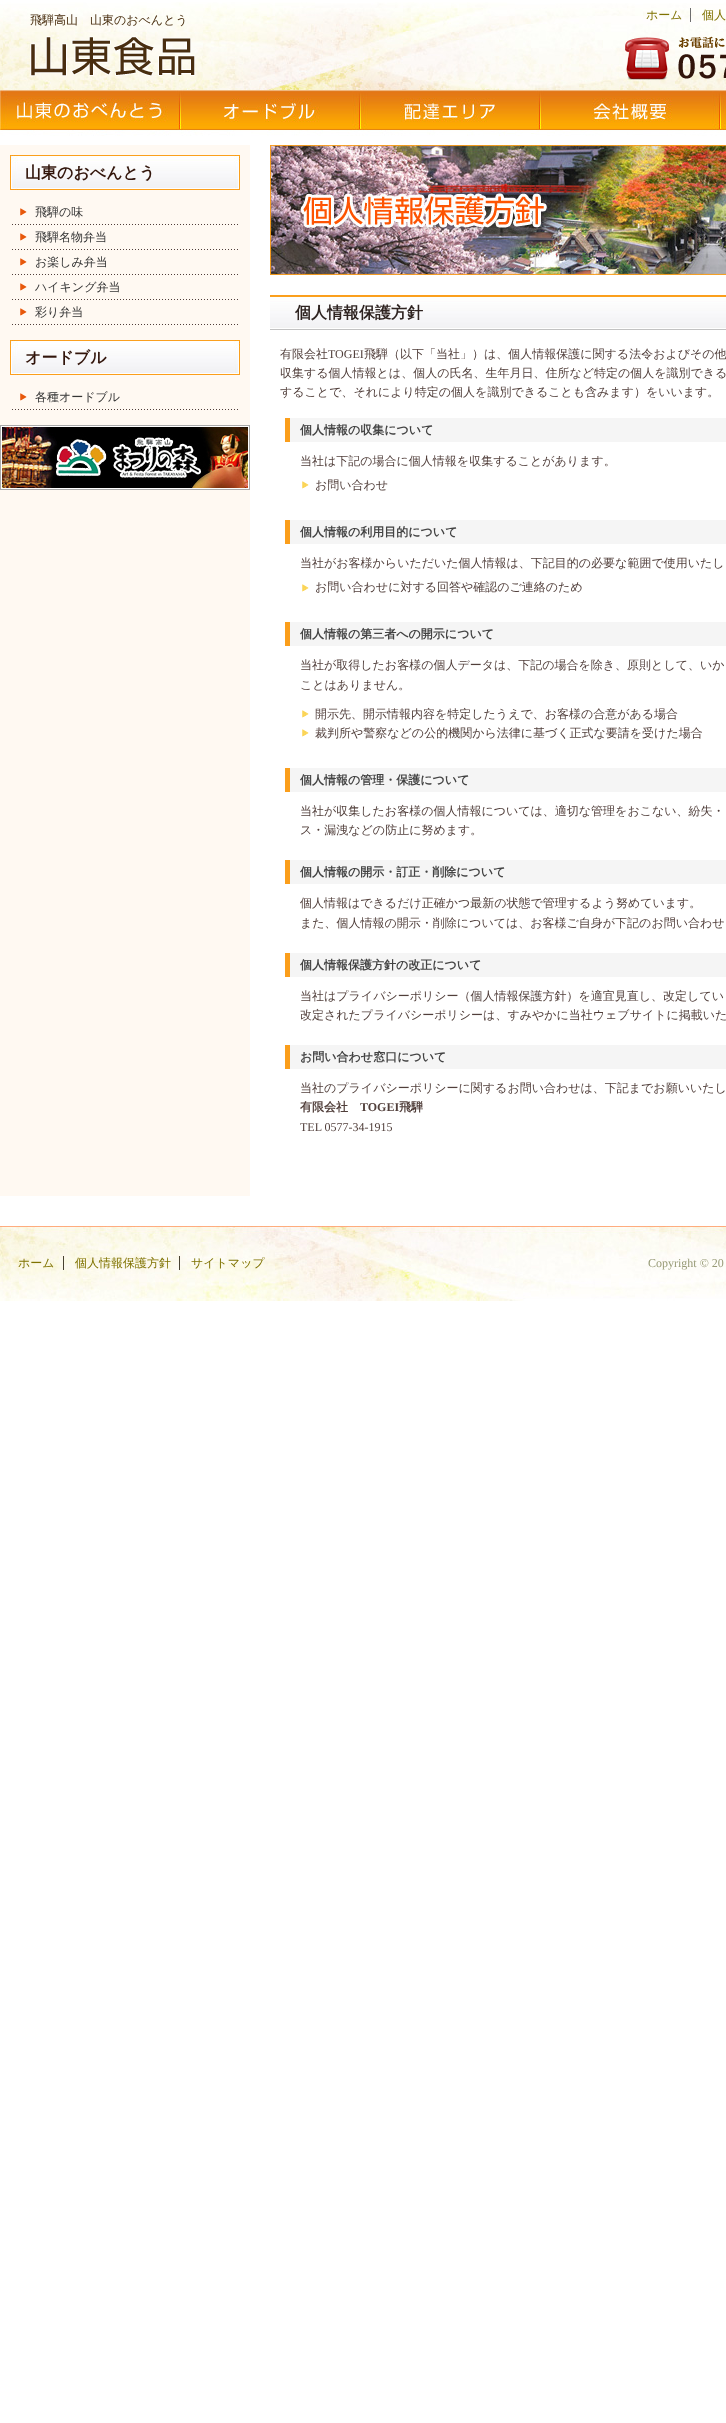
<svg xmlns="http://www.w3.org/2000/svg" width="726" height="2423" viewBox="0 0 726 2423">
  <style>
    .t1 { font: 500 12px WenQuanYi Zen Hei; fill: #492e10; }
    .t2 { font: 500 12px WenQuanYi Zen Hei; fill: #7f7200; }
    .t3 { font: bold 16px WenQuanYi Zen Hei; fill: #32150b; }
    .t4 { font: 500 12px WenQuanYi Zen Hei; fill: #353535; }
    .t5 { font: bold 16px WenQuanYi Zen Hei; fill: #2e2320; }
    .t6 { font: 500 12px WenQuanYi Zen Hei; fill: #513f3b; }
    .t7 { font: 12px Liberation Serif; fill: #513f3b; }
    .t8 { font: bold 12px WenQuanYi Zen Hei; fill: #434343; }
    .t9 { font: bold 12px WenQuanYi Zen Hei; fill: #513f3b; }
    .t10 { font: bold 12px Liberation Serif; fill: #513f3b; }
    .t11 { font: 12px Liberation Serif; fill: #989b77; }
  </style>
  <rect width="100%" height="100%" fill="#fff"/>
  <image x="0" y="2" width="726" height="134" href="images/1.png"/>
  <text x="30" y="24" class="t1">飛騨高山　山東のおべんとう</text>
  <image x="30" y="36" width="166" height="41" href="images/2.png"/>
  <text x="646" y="19" class="t2">ホーム</text>
  <rect x="690" y="8" width="1" height="14" fill="#6e6e6e"/>
  <text x="702" y="19" class="t2">個人</text>
  <image x="625" y="36" width="101" height="44" href="images/3.png"/>
  <image x="0" y="90" width="726" height="40" href="images/4.png"/>
  <rect x="0" y="145" width="250" height="1051" fill="#fff9f2"/>
  <image x="10" y="155" width="230" height="35" href="images/5.png"/>
  <text x="25" y="178" class="t3">山東のおべんとう</text>
  <image x="12" y="208" width="226" height="17" href="images/6.png"/>
  <text x="35" y="216" class="t4">飛騨の味</text>
  <image x="12" y="233" width="226" height="17" href="images/6.png"/>
  <text x="35" y="241" class="t4">飛騨名物弁当</text>
  <image x="12" y="258" width="226" height="17" href="images/6.png"/>
  <text x="35" y="266" class="t4">お楽しみ弁当</text>
  <image x="12" y="283" width="226" height="17" href="images/6.png"/>
  <text x="35" y="291" class="t4">ハイキング弁当</text>
  <image x="12" y="308" width="226" height="17" href="images/6.png"/>
  <text x="35" y="316" class="t4">彩り弁当</text>
  <image x="10" y="340" width="230" height="35" href="images/5.png"/>
  <text x="25" y="363" class="t3">オードブル</text>
  <image x="12" y="393" width="226" height="17" href="images/6.png"/>
  <text x="35" y="401" class="t4">各種オードブル</text>
  <image x="0" y="425" width="250" height="65" href="images/7.png"/>
  <image x="270" y="145" width="456" height="130" href="images/8.png"/>
  <image x="270" y="295" width="456" height="35" href="images/9.png"/>
  <text x="295" y="318" class="t5">個人情報保護方針</text>
  <text x="280" y="358" class="t6">有限会社</text>
  <text x="328" y="358" class="t7">TOGEI</text>
  <text x="364" y="358" word-spacing="-1" class="t6">飛騨（以下「当社」）は、個人情報保護に関する法令およびその他</text>
  <text x="280" y="377" word-spacing="-1" class="t6">収集する個人情報とは、個人の氏名、生年月日、住所など特定の個人を識別できる</text>
  <text x="280" y="396" class="t6">することで、それにより特定の個人を識別できることも含みます）をいいます。</text>
  <rect x="290" y="418" width="436" height="24" fill="#f5f5f5"/>
  <rect x="285" y="418" width="5" height="24" fill="#fb9e1b"/>
  <text x="300" y="434" class="t8">個人情報の収集について</text>
  <text x="300" y="465" class="t6">当社は下記の場合に個人情報を収集することがあります。</text>
  <image x="302" y="481" width="7" height="8" href="images/10.png"/>
  <text x="315" y="489" class="t6">お問い合わせ</text>
  <rect x="290" y="520" width="436" height="24" fill="#f5f5f5"/>
  <rect x="285" y="520" width="5" height="24" fill="#fb9e1b"/>
  <text x="300" y="536" class="t8">個人情報の利用目的について</text>
  <text x="300" y="567" class="t6">当社がお客様からいただいた個人情報は、下記目的の必要な範囲で使用いたし</text>
  <image x="302" y="584" width="7" height="8" href="images/10.png"/>
  <text x="315" y="591" class="t6">お問い合わせに対する回答や確認のご連絡のため</text>
  <rect x="290" y="622" width="436" height="24" fill="#f5f5f5"/>
  <rect x="285" y="622" width="5" height="24" fill="#fb9e1b"/>
  <text x="300" y="638" class="t8">個人情報の第三者への開示について</text>
  <text x="300" y="669" class="t6">当社が取得したお客様の個人データは、下記の場合を除き、原則として、いか</text>
  <text x="300" y="689" class="t6">ことはありません。</text>
  <image x="302" y="710" width="7" height="8" href="images/10.png"/>
  <text x="315" y="718" class="t6">開示先、開示情報内容を特定したうえで、お客様の合意がある場合</text>
  <image x="302" y="729" width="7" height="8" href="images/10.png"/>
  <text x="315" y="737" class="t6">裁判所や警察などの公的機関から法律に基づく正式な要請を受けた場合</text>
  <rect x="290" y="768" width="436" height="24" fill="#f5f5f5"/>
  <rect x="285" y="768" width="5" height="24" fill="#fb9e1b"/>
  <text x="300" y="784" class="t8">個人情報の管理・保護について</text>
  <text x="300" y="815" class="t6">当社が収集したお客様の個人情報については、適切な管理をおこない、紛失・</text>
  <text x="300" y="834" class="t6">ス・漏洩などの防止に努めます。</text>
  <rect x="290" y="860" width="436" height="24" fill="#f5f5f5"/>
  <rect x="285" y="860" width="5" height="24" fill="#fb9e1b"/>
  <text x="300" y="876" class="t8">個人情報の開示・訂正・削除について</text>
  <text x="300" y="907" class="t6">個人情報はできるだけ正確かつ最新の状態で管理するよう努めています。</text>
  <text x="300" y="927" class="t6">また、個人情報の開示・削除については、お客様ご自身が下記のお問い合わせ</text>
  <rect x="290" y="953" width="436" height="24" fill="#f5f5f5"/>
  <rect x="285" y="953" width="5" height="24" fill="#fb9e1b"/>
  <text x="300" y="969" class="t8">個人情報保護方針の改正について</text>
  <text x="300" y="1000" class="t6">当社はプライバシーポリシー（個人情報保護方針）を適宜見直し、改定してい</text>
  <text x="300" y="1019" class="t6">改定されたプライバシーポリシーは、すみやかに当社ウェブサイトに掲載いた</text>
  <rect x="290" y="1045" width="436" height="24" fill="#f5f5f5"/>
  <rect x="285" y="1045" width="5" height="24" fill="#fb9e1b"/>
  <text x="300" y="1061" class="t8">お問い合わせ窓口について</text>
  <text x="300" y="1092" class="t6">当社のプライバシーポリシーに関するお問い合わせは、下記までお願いいたし</text>
  <text x="300" y="1111" class="t9">有限会社</text>
  <text x="360" y="1111" class="t10">TOGEI</text>
  <text x="399" y="1111" class="t9">飛騨</text>
  <text x="300" y="1131" class="t7">TEL 0577-34-1915</text>
  <image x="0" y="1226" width="726" height="75" href="images/11.png"/>
  <text x="18" y="1267" class="t2">ホーム</text>
  <rect x="63" y="1256" width="1" height="14" fill="#484231"/>
  <text x="75" y="1267" class="t2">個人情報保護方針</text>
  <rect x="179" y="1256" width="1" height="14" fill="#484231"/>
  <text x="191" y="1267" class="t2">サイトマップ</text>
  <text x="648" y="1267" class="t11">Copyright © 20</text>
</svg>
